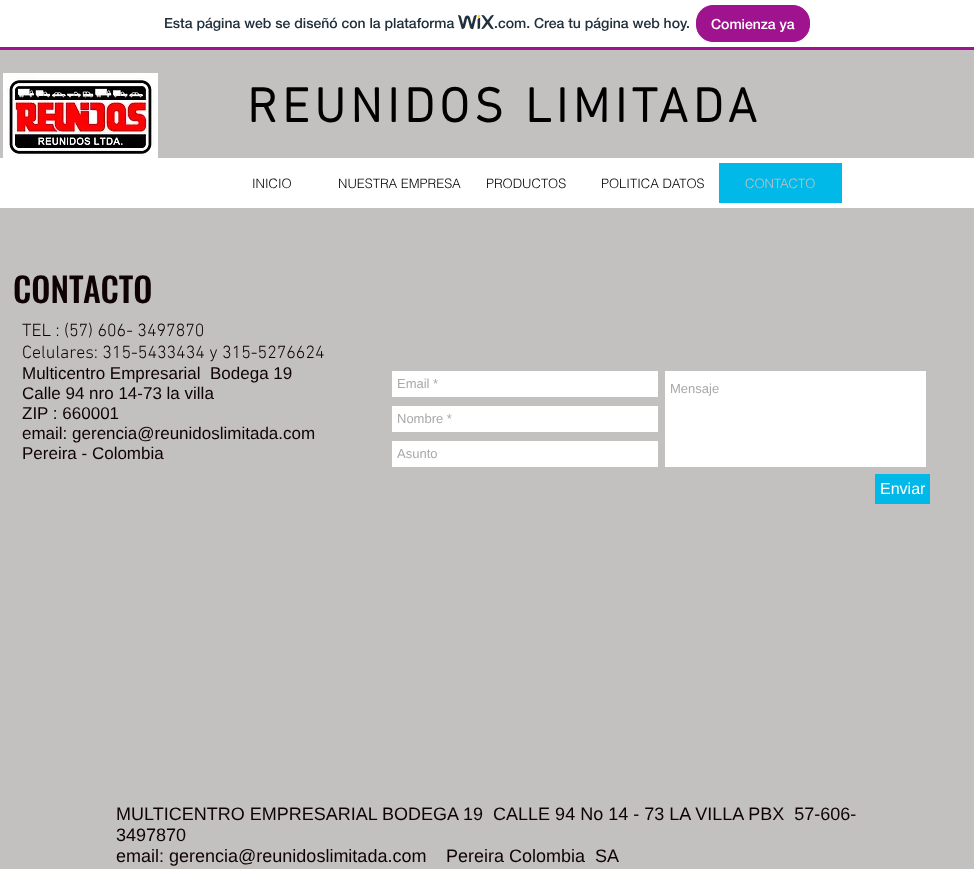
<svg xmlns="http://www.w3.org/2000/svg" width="974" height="869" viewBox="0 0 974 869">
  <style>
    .t1 { font: 500 14px 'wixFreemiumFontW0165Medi'; fill: #20303c; }
    .t2 { font: 500 14px 'wixFreemiumFontW0165Medi'; fill: #fff; }
    .t3 { font: bold 49px 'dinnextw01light'; letter-spacing: 4.9px; fill: #000; }
    .t4 { font: 300 13px helvetica; fill: #000; }
    .t5 { font: 300 13px helvetica; fill: #c3c0c0; }
    .t6 { font: 500 34px Oswald; fill: #0f0202; }
    .t7 { font: 300 18px 'dinnextw01light'; fill: #0f0202; }
    .t8 { font: 17px Liberation Sans; fill: #0f0202; }
    .t9 { font: 13px Liberation Sans; fill: #a9a9a9; }
    .t10 { font: 16px Liberation Sans; fill: #fff; }
    .t11 { font: 18px Liberation Sans; fill: #0f0202; }
  </style>
  <rect width="100%" height="100%" fill="#fff"/>
  <rect x="0" y="47" width="974" height="3" fill="#a0138e"/>
  <text x="164" y="28" class="t1">Esta página web se diseñó con la plataforma</text>
  <image x="458" y="15" width="36" height="15" href="images/1.png"/>
  <text x="494" y="28" class="t1">.com. Crea tu página web hoy.</text>
  <rect x="696.5" y="5.5" width="113" height="36" rx="16.5" fill="#a0138e" stroke="#a0138e"/>
  <text x="711" y="29" class="t2">Comienza ya</text>
  <rect x="0" y="50" width="974" height="819" fill="#c3c0c0"/>
  <image x="3" y="73" width="155" height="85" href="images/2.png"/>
  <text x="247" y="122" class="t3">REUNIDOS LIMITADA</text>
  <rect x="0" y="158" width="974" height="50" fill="#fff"/>
  <text x="252" y="188" class="t4">INICIO</text>
  <text x="338" y="188" class="t4">NUESTRA EMPRESA</text>
  <text x="486" y="188" class="t4">PRODUCTOS</text>
  <text x="601" y="188" class="t4">POLITICA DATOS</text>
  <rect x="719" y="163" width="123" height="40" fill="#00b9e8"/>
  <text x="745" y="188" class="t5">CONTACTO</text>
  <text x="13" y="303" class="t6">CONTACTO</text>
  <text x="22" y="336" class="t7">TEL : (57) 606- 3497870</text>
  <text x="22" y="358" class="t7">Celulares: 315-5433434 y 315-5276624</text>
  <text x="22" y="379" class="t8" xml:space="preserve">Multicentro Empresarial  Bodega 19</text>
  <text x="22" y="399" class="t8">Calle 94 nro 14-73 la villa</text>
  <text x="22" y="419" class="t8">ZIP : 660001</text>
  <text x="22" y="439" class="t8">email: gerencia@reunidoslimitada.com</text>
  <text x="22" y="459" class="t8">Pereira - Colombia</text>
  <rect x="392" y="371" width="266" height="26" fill="#fff"/>
  <text x="397" y="388" class="t9">Email *</text>
  <rect x="665" y="371" width="261" height="96" fill="#fff"/>
  <text x="670" y="393" class="t9">Mensaje</text>
  <rect x="392" y="406" width="266" height="26" fill="#fff"/>
  <text x="397" y="423" class="t9">Nombre *</text>
  <rect x="392" y="441" width="266" height="26" fill="#fff"/>
  <text x="397" y="458" class="t9">Asunto</text>
  <rect x="875" y="474" width="55" height="30" fill="#00b9e8"/>
  <text x="880" y="494" class="t10">Enviar</text>
  <text x="116" y="820" class="t11" xml:space="preserve">MULTICENTRO EMPRESARIAL BODEGA 19  CALLE 94 No 14 - 73 LA VILLA PBX  57-606-</text>
  <text x="116" y="841" class="t11">3497870</text>
  <text x="116" y="862" class="t11">email: gerencia@reunidoslimitada.com</text>
  <text x="446" y="862" class="t11" xml:space="preserve">Pereira Colombia  SA</text>
</svg>
